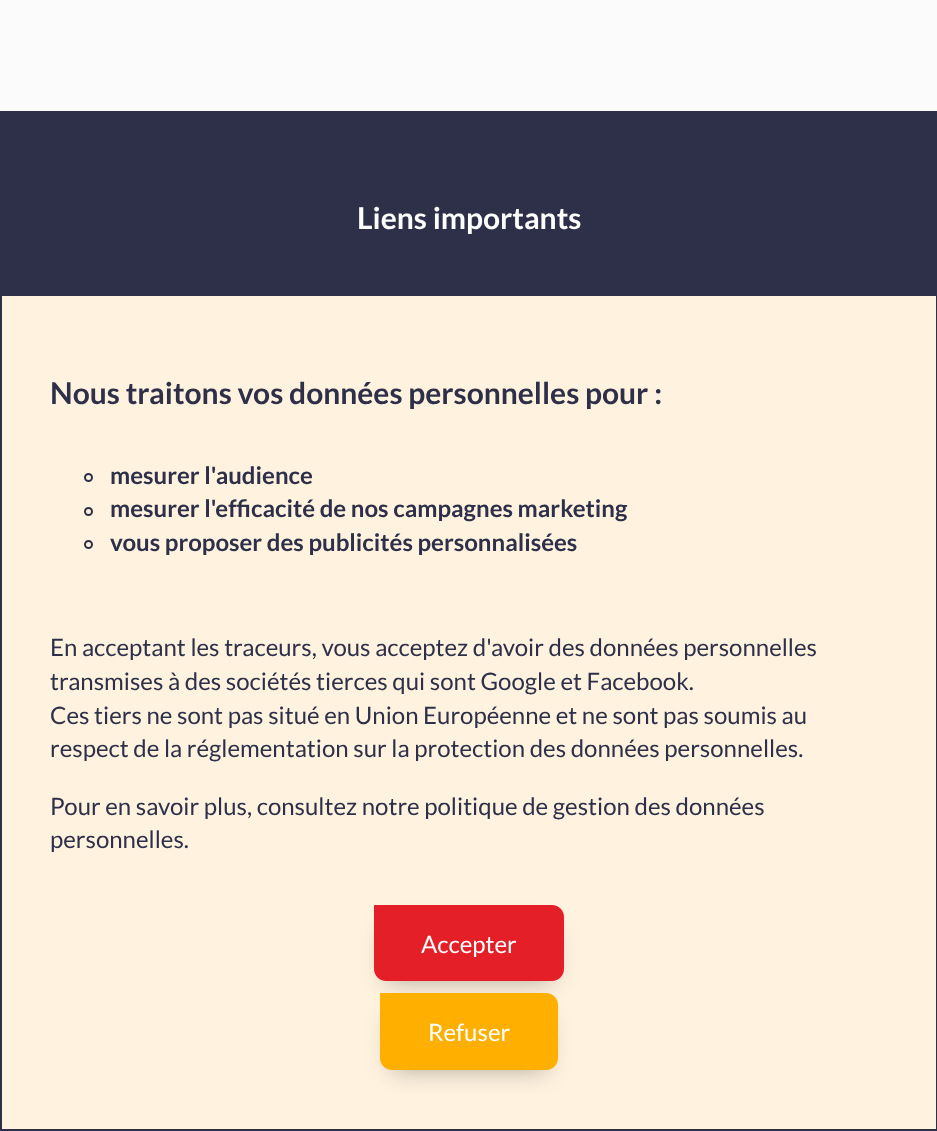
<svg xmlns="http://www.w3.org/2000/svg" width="937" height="1131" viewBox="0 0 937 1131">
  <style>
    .t1 { font: bold 30px Lato; fill: #fff; }
    .t2 { font: bold 30px Lato; fill: #2e3049; }
    .t3 { font: bold 24px Lato; fill: #2e3049; }
    .t4 { font: 24px Lato; fill: #2e3049; }
    .t5 { font: 24px Lato; fill: #fff; }
  </style>
  <rect width="100%" height="100%" fill="#fbfbfb"/>
  <rect x="0" y="111" width="937" height="183" fill="#2e3049"/>
  <text x="357" y="229" class="t1">Liens importants</text>
  <rect x="1" y="295" width="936" height="835" fill="#fff2df" stroke="#2e3049" stroke-width="2"/>
  <text x="50" y="404" class="t2">Nous traitons vos données personnelles pour :</text>
  <circle cx="88.5" cy="477.5" r="3.5" fill="none" stroke="#2e3049" stroke-width="2"/>
  <text x="110" y="484" class="t3">mesurer l'audience</text>
  <circle cx="88.5" cy="511.5" r="3.5" fill="none" stroke="#2e3049" stroke-width="2"/>
  <text x="110" y="517" class="t3">mesurer l'efficacité de nos campagnes marketing</text>
  <circle cx="88.5" cy="544.5" r="3.5" fill="none" stroke="#2e3049" stroke-width="2"/>
  <text x="110" y="551" class="t3">vous proposer des publicités personnalisées</text>
  <text x="50" y="656" class="t4">En acceptant les traceurs, vous acceptez d'avoir des données personnelles</text>
  <text x="50" y="690" class="t4">transmises à des sociétés tierces qui sont Google et Facebook.</text>
  <text x="50" y="724" class="t4">Ces tiers ne sont pas situé en Union Européenne et ne sont pas soumis au</text>
  <text x="50" y="757" class="t4">respect de la réglementation sur la protection des données personnelles.</text>
  <text x="50" y="815" class="t4">Pour en savoir plus, consultez notre politique de gestion des données</text>
  <text x="50" y="848" class="t4">personnelles.</text>
  <rect x="386" y="929" width="166" height="52" fill="#0000004d" filter="blur(12px)"/>
  <path d="M374 905H552C558.5 905 564 910.5 564 917V969C564 975.5 558.5 981 552 981H386C379.5 981 374 975.5 374 969Z" fill="#e41f27"/>
  <text x="421" y="953" class="t5">Accepter</text>
  <rect x="392" y="1017" width="154" height="53" fill="#0000004d" filter="blur(12px)"/>
  <path d="M380 993H546C552.5 993 558 998.5 558 1005V1058C558 1064.5 552.5 1070 546 1070H392C385.5 1070 380 1064.5 380 1058Z" fill="#ffaf00"/>
  <text x="428" y="1041" class="t5">Refuser</text>
</svg>
